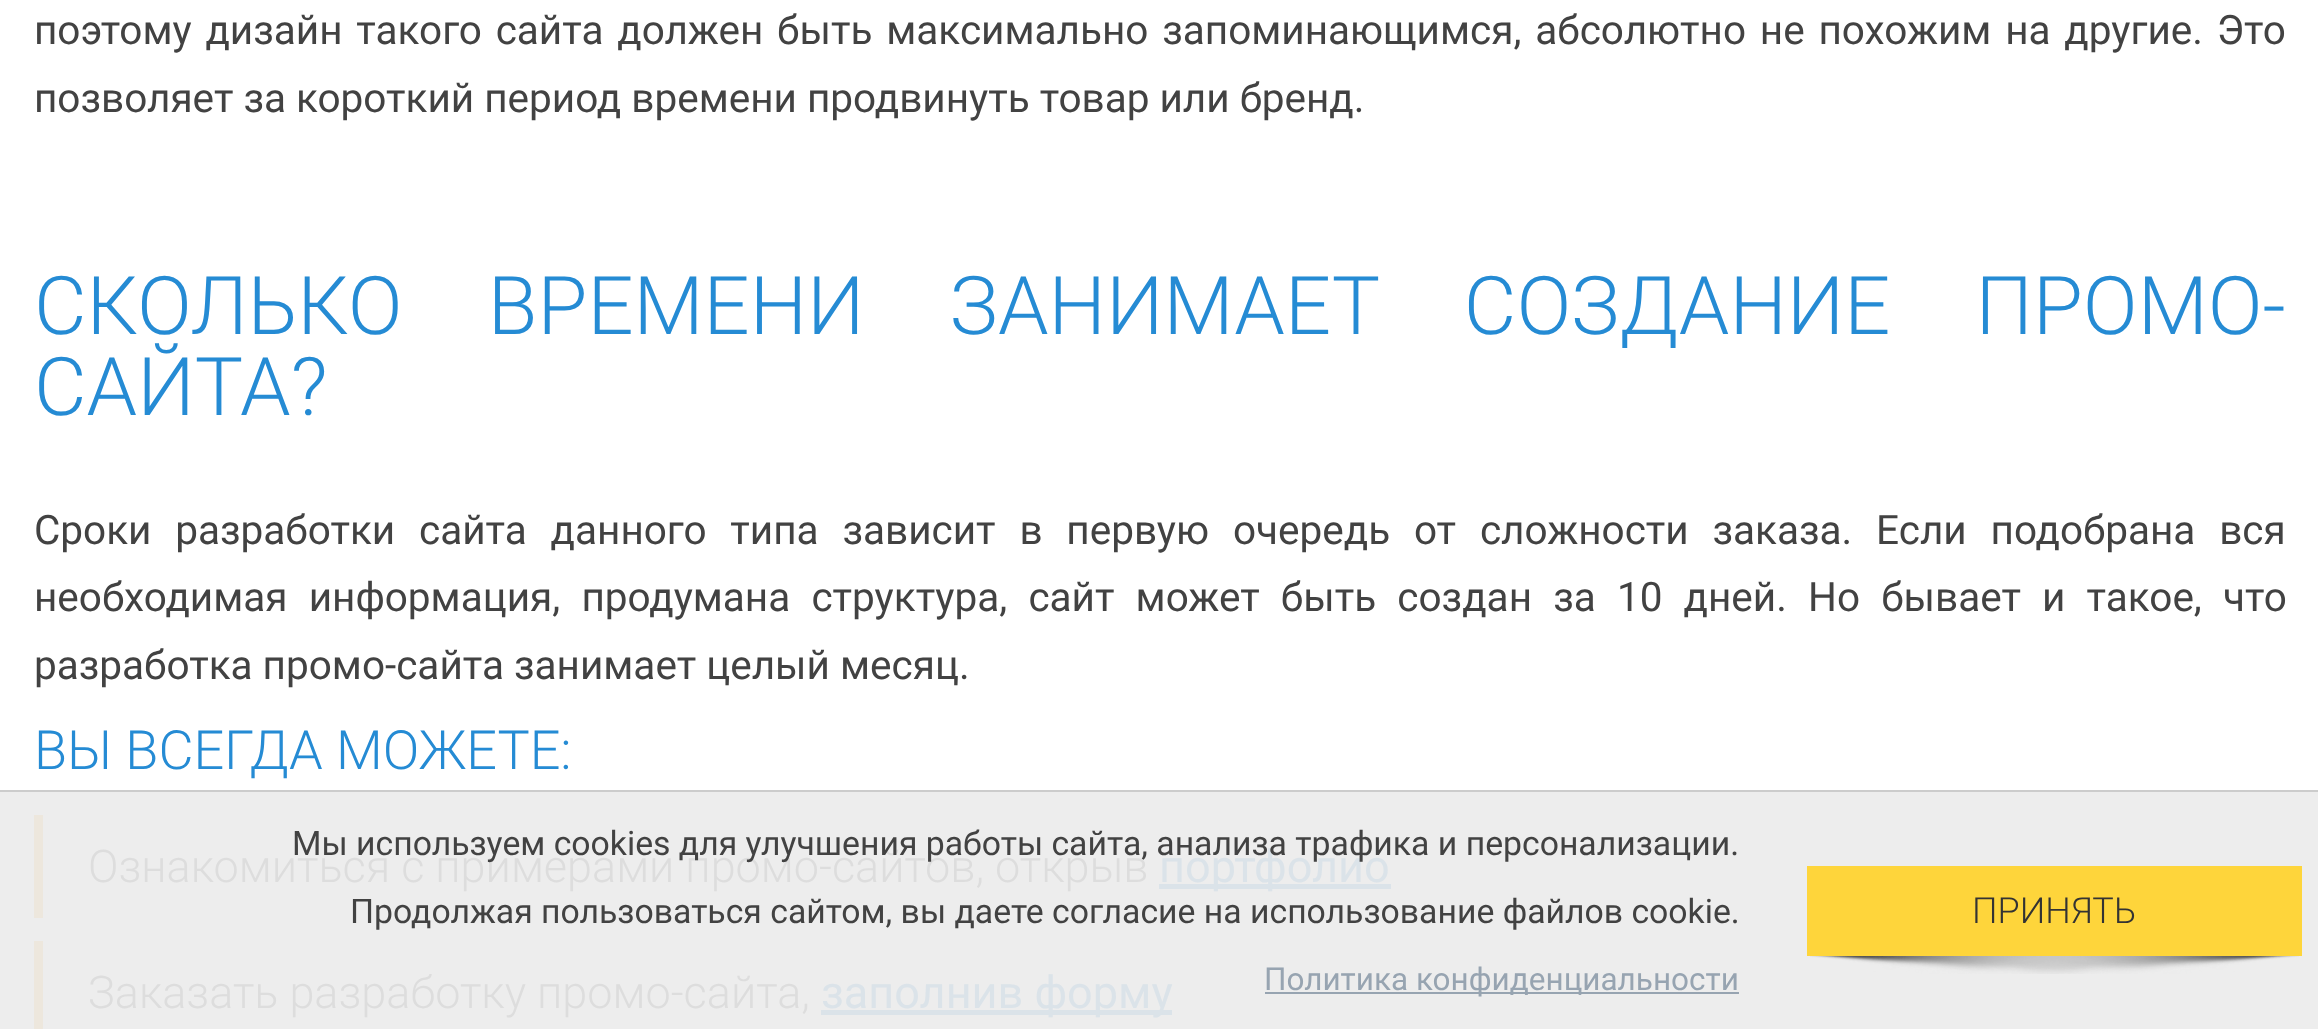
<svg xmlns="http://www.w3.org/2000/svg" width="2318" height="1029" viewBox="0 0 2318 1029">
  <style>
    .t1 { font: 40.5px Roboto; fill: #424242; }
    .t2 { font: 300 81px Roboto; fill: #258bd4; }
    .t3 { font: 300 54px Roboto; fill: #258bd4; }
    .t4 { font: 300 45px Roboto; fill: #ddd; }
    .t5 { font: 45px Roboto; fill: #dbe3e9; }
    .t6 { font: 33.75px Roboto; fill: #424242; }
    .t7 { font: 31.5px Roboto; fill: #97a4b1; }
    .t8 { font: 300 36px Roboto; fill: #333; }
  </style>
  <rect width="100%" height="100%" fill="#fff"/>
  <rect x="0" y="792" width="2318" height="237" fill="#ededed"/>
  <text x="34" y="44" word-spacing="3.75" class="t1">поэтому дизайн такого сайта должен быть максимально запоминающимся, абсолютно не похожим на другие. Это</text>
  <text x="34" y="112" class="t1">позволяет за короткий период времени продвинуть товар или бренд.</text>
  <text x="34" y="334" word-spacing="65.5" class="t2">СКОЛЬКО ВРЕМЕНИ ЗАНИМАЕТ СОЗДАНИЕ ПРОМО-</text>
  <text x="34" y="415" class="t2">САЙТА?</text>
  <text x="34" y="544" word-spacing="13.75" class="t1">Сроки разработки сайта данного типа зависит в первую очередь от сложности заказа. Если подобрана вся</text>
  <text x="34" y="611" word-spacing="11.1" class="t1">необходимая информация, продумана структура, сайт может быть создан за 10 дней. Но бывает и такое, что</text>
  <text x="34" y="679" class="t1">разработка промо-сайта занимает целый месяц.</text>
  <text x="34" y="769" class="t3">ВЫ ВСЕГДА МОЖЕТЕ:</text>
  <rect x="34" y="815" width="9" height="103" fill="#ede7dd"/>
  <text x="88" y="882" class="t4">Ознакомиться с примерами промо-сайтов, открыв</text>
  <rect x="1159" y="884" width="232" height="5" fill="#dbe3e9"/>
  <text x="1159" y="882" class="t5">портфолио</text>
  <rect x="34" y="941" width="9" height="88" fill="#ede7dd"/>
  <text x="88" y="1008" class="t4">Заказать разработку промо-сайта,</text>
  <rect x="821" y="1010" width="351" height="5" fill="#dbe3e9"/>
  <text x="821" y="1008" class="t5">заполнив форму</text>
  <rect x="-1" y="791" width="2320" height="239" fill="none" stroke="#ccc" stroke-width="2"/>
  <text x="292" y="855" class="t6">Мы используем cookies для улучшения работы сайта, анализа трафика и персонализации.</text>
  <text x="350" y="923" class="t6">Продолжая пользоваться сайтом, вы даете согласие на использование файлов cookie.</text>
  <rect x="1265" y="992" width="474" height="2" fill="#97a4b1"/>
  <text x="1264" y="990" class="t7">Политика конфиденциальности</text>
  <rect x="1807" y="866" width="495" height="90" fill="#fed53b"/>
  <text x="1972" y="923" class="t8">ПРИНЯТЬ</text>
  <image x="1810" y="956" width="489" height="18" href="images/1.png"/>
</svg>
